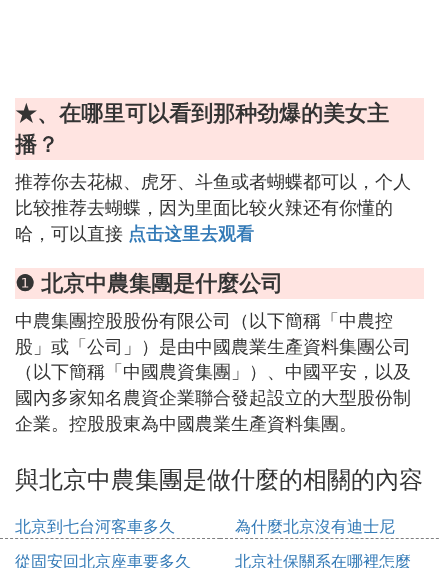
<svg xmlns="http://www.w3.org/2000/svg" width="439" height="568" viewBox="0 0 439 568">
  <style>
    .t1 { font: bold 22px WenQuanYi Zen Hei; fill: #333; }
    .t2 { font: 500 18px WenQuanYi Zen Hei; fill: #333; }
    .t3 { font: bold 18px WenQuanYi Zen Hei; fill: #337ab7; }
    .t4 { font: bold 22px DejaVu Sans; fill: #333; }
    .t5 { font: 500 24px WenQuanYi Zen Hei; fill: #333; }
    .t6 { font: 500 16px WenQuanYi Zen Hei; fill: #337ab7; }
  </style>
  <rect width="100%" height="100%" fill="#fff"/>
  <rect x="15" y="98" width="409" height="62" fill="#ffe4e1"/>
  <text x="15" y="121" class="t1">★、在哪里可以看到那种劲爆的美女主</text>
  <text x="15" y="152" class="t1">播？</text>
  <text x="15" y="188" class="t2">推荐你去花椒、虎牙、斗鱼或者蝴蝶都可以，个人</text>
  <text x="15" y="214" class="t2">比较推荐去蝴蝶，因为里面比较火辣还有你懂的</text>
  <text x="15" y="240" class="t2">哈，可以直接</text>
  <text x="128" y="240" class="t3">点击这里去观看</text>
  <rect x="15" y="268" width="409" height="31" fill="#ffe4e1"/>
  <text x="15" y="291" class="t4">❶</text>
  <text x="41" y="291" class="t1">北京中農集團是什麼公司</text>
  <text x="15" y="327" class="t2">中農集團控股股份有限公司（以下簡稱「中農控</text>
  <text x="15" y="353" class="t2">股」或「公司」）是由中國農業生產資料集團公司</text>
  <text x="15" y="378" class="t2">（以下簡稱「中國農資集團」）、中國平安，以及</text>
  <text x="15" y="404" class="t2">國內多家知名農資企業聯合發起設立的大型股份制</text>
  <text x="15" y="430" class="t2">企業。控股股東為中國農業生產資料集團。</text>
  <text x="15" y="488" class="t5">與北京中農集團是做什麼的相關的內容</text>
  <path d="M0 538.5H220" fill="none" stroke="#808080" stroke-dasharray="3 2.05"/>
  <text x="15" y="532" class="t6">北京到七台河客車多久</text>
  <path d="M220 538.5H439" fill="none" stroke="#808080" stroke-dasharray="3 2.02"/>
  <text x="235" y="532" class="t6">為什麼北京沒有迪士尼</text>
  <text x="15" y="567" class="t6">從固安回北京座車要多久</text>
  <text x="235" y="567" class="t6">北京社保關系在哪裡怎麼</text>
</svg>
